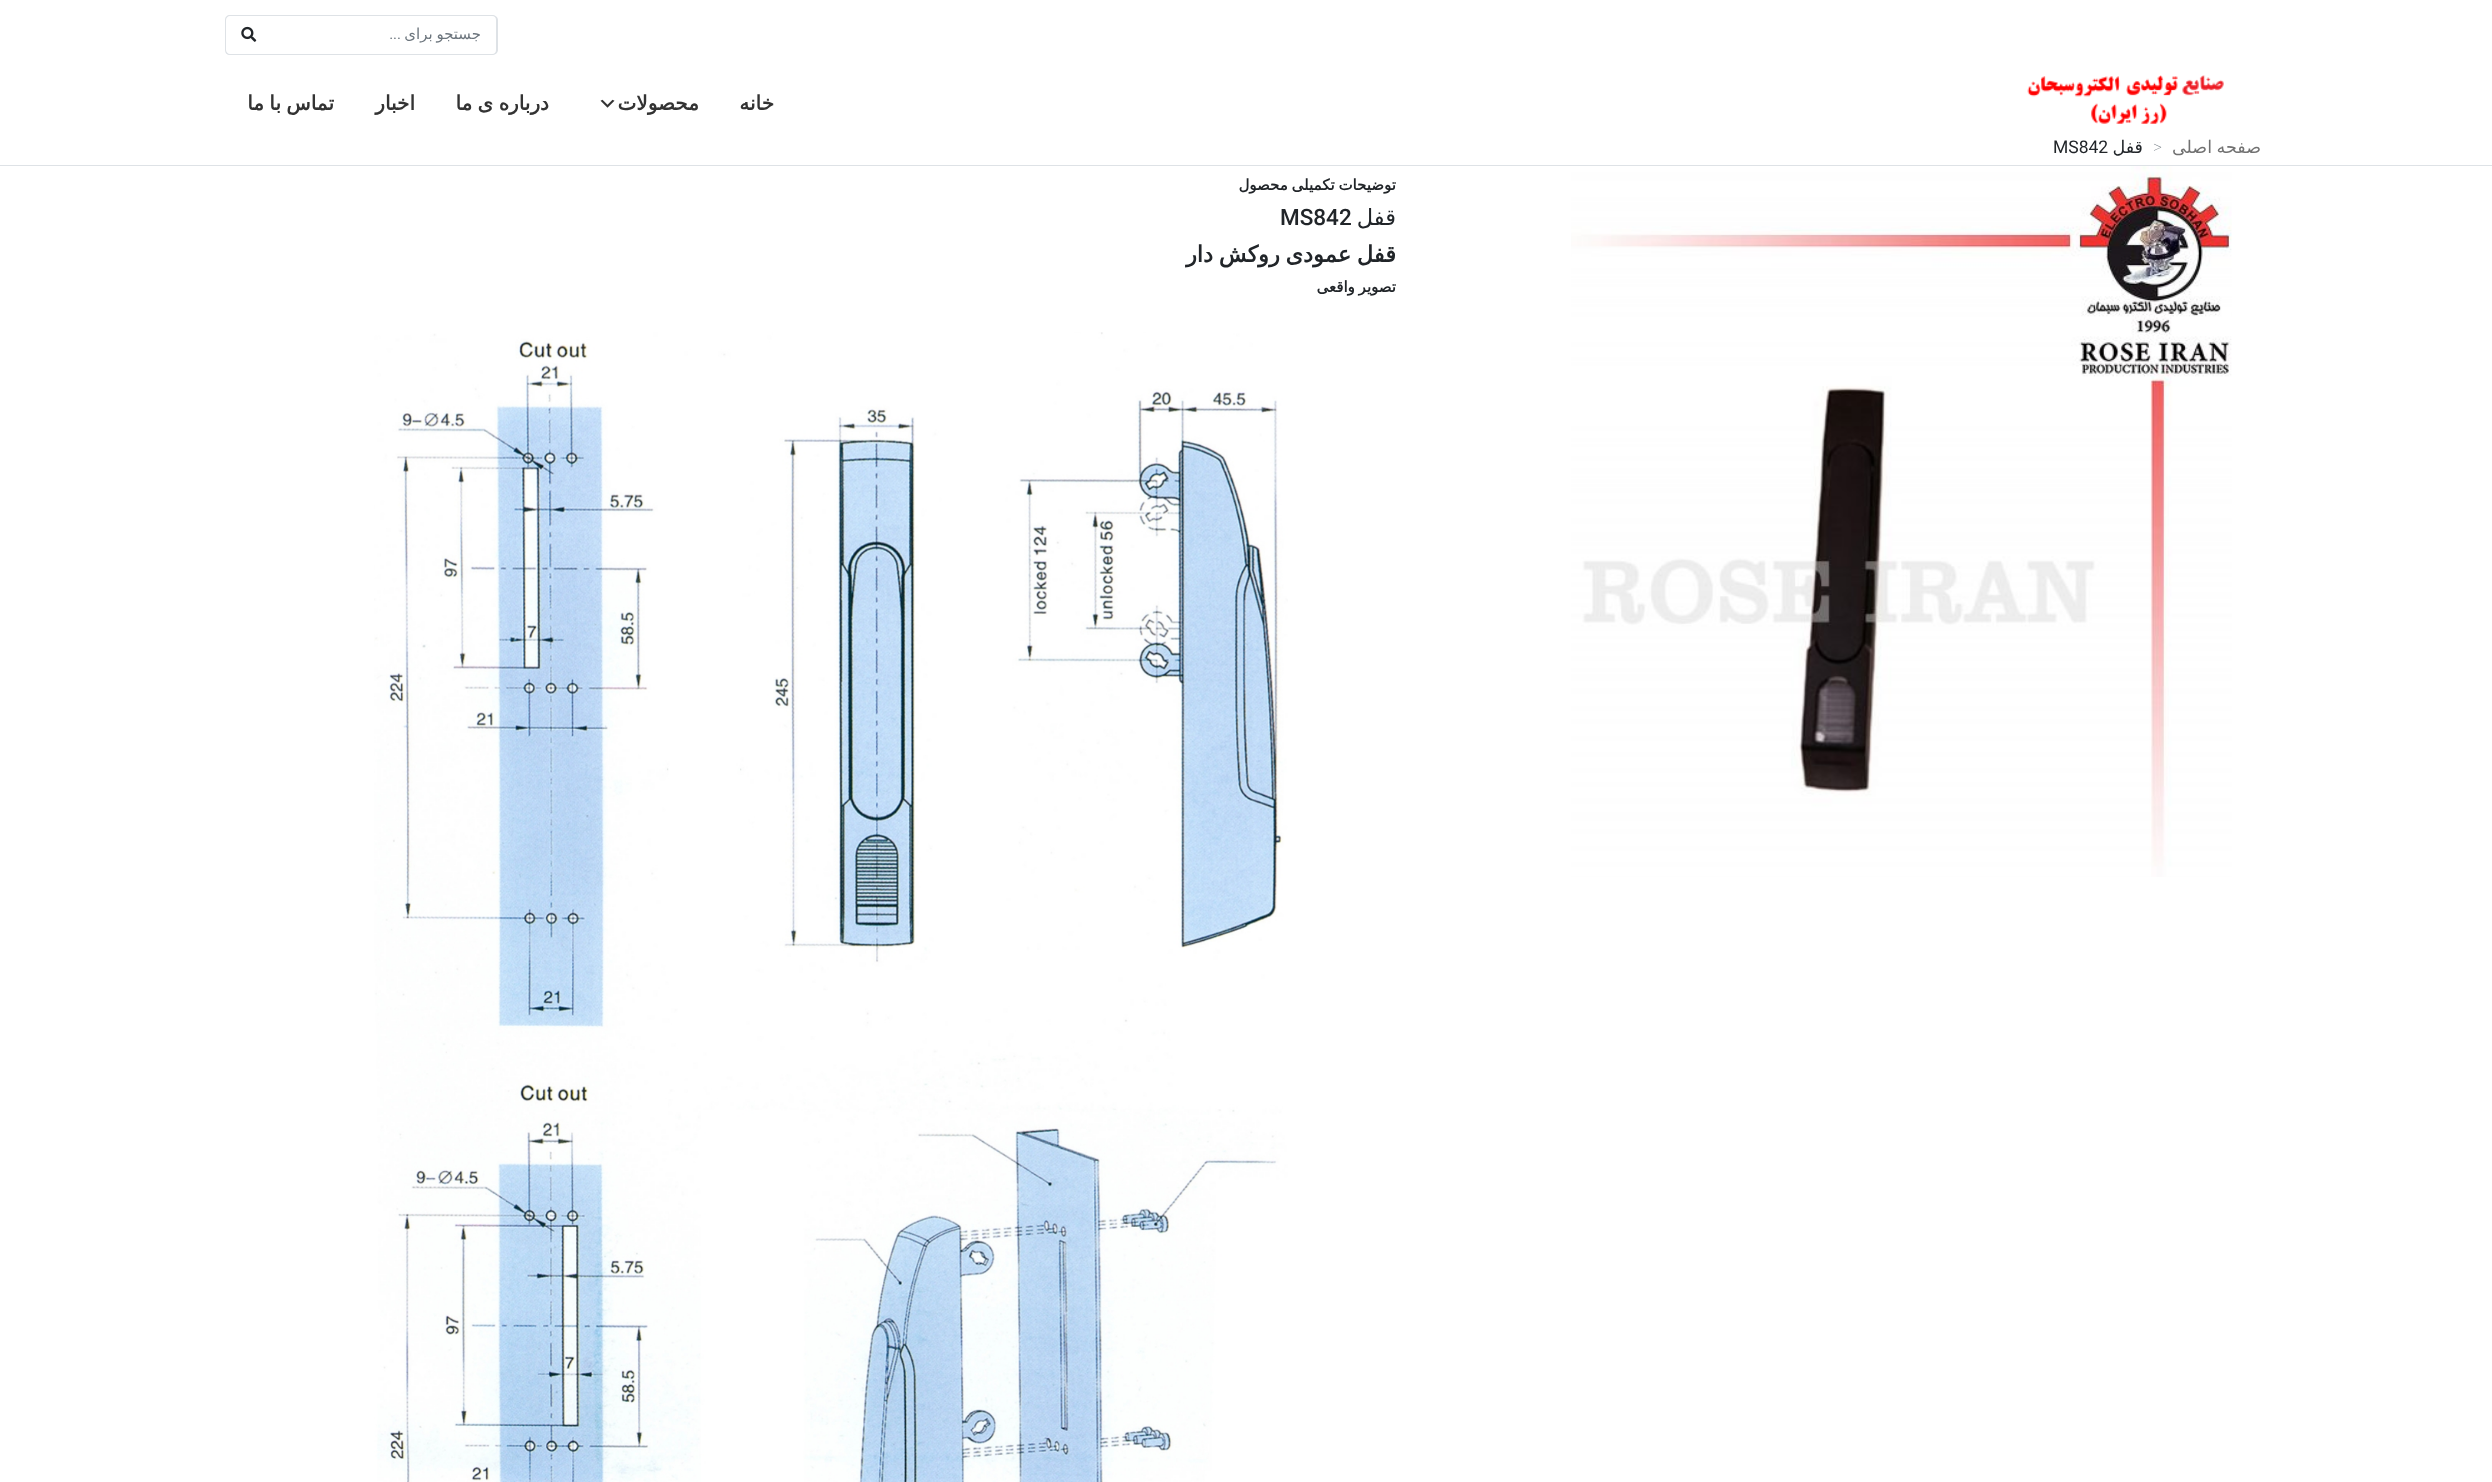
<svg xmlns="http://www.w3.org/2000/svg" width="2492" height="1482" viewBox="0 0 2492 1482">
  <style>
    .t1 { font: 15px DejaVu Sans; direction: rtl; fill: #6c757d; }
    .t2 { font: 15px Roboto; direction: rtl; fill: #6c757d; }
    .t3 { font: bold 20px DejaVu Sans; direction: rtl; fill: #333; }
    .t4 { font: 17.5px DejaVu Sans; direction: rtl; fill: #717171; }
    .t5 { font: 100 17.5px Roboto; fill: #6c757d; }
    .t6 { font: 17.5px DejaVu Sans; direction: rtl; fill: #212529; }
    .t7 { font: 17.5px Roboto; fill: #212529; }
    .t8 { font: bold 15px DejaVu Sans; direction: rtl; fill: #212529; }
    .t9 { font: 22.5px DejaVu Sans; direction: rtl; fill: #212529; }
    .t10 { font: 500 22.5px Roboto; fill: #212529; }
    .t11 { font: bold 22.5px DejaVu Sans; direction: rtl; fill: #212529; }
  </style>
  <rect width="100%" height="100%" fill="#fff"/>
  <path d="M271 15H492C495 15 498 17 498 20V50C498 53 495 55 492 55H271ZM271 16H492C495 16 496 18 496 20V50C496 52 495 54 492 54H271Z" fill="#dee2e6" fill-rule="evenodd"/>
  <text x="481" y="39" word-spacing="-1" class="t1">جستجو برای</text>
  <text x="401" y="39" class="t2">...</text>
  <path d="M230 15H271V55H230C227 55 225 53 225 50V20C225 17 227 15 230 15ZM230 16H271V54H230C228 54 226 52 226 50V20C226 18 228 16 230 16Z" fill="#dee2e6" fill-rule="evenodd"/>
  <image x="241" y="26" width="16" height="16" href="images/1.png"/>
  <image x="2027" y="75" width="197" height="49" href="images/2.png"/>
  <text x="774" y="110" class="t3">خانه</text>
  <text x="699" y="110" class="t3">محصولات</text>
  <image x="600" y="99" width="15" height="9" href="images/3.png"/>
  <text x="549" y="110" word-spacing="-1" class="t3">درباره ی ما</text>
  <text x="415" y="110" class="t3">اخبار</text>
  <text x="334" y="110" word-spacing="-1" class="t3">تماس با ما</text>
  <rect x="0" y="165" width="2492" height="1" fill="#dee2e6"/>
  <text x="2261" y="153" word-spacing="-1" class="t4">صفحه اصلی</text>
  <text x="2153" y="153" class="t5">&gt;</text>
  <text x="2143" y="153" class="t6">قفل</text>
  <text x="2053" y="153" class="t7">MS842</text>
  <image x="1571" y="166" width="661" height="711" href="images/4.png"/>
  <text x="1396" y="190" word-spacing="-1" class="t8">توضیحات تکمیلی محصول</text>
  <text x="1396" y="225" class="t9">قفل</text>
  <text x="1280" y="225" class="t10">MS842</text>
  <text x="1396" y="262" word-spacing="-1.5" class="t11">قفل عمودی روکش دار</text>
  <text x="1396" y="292" word-spacing="-1" class="t8">تصویر واقعی</text>
  <image x="374" y="332" width="914" height="1150" href="images/5.png"/>
</svg>
